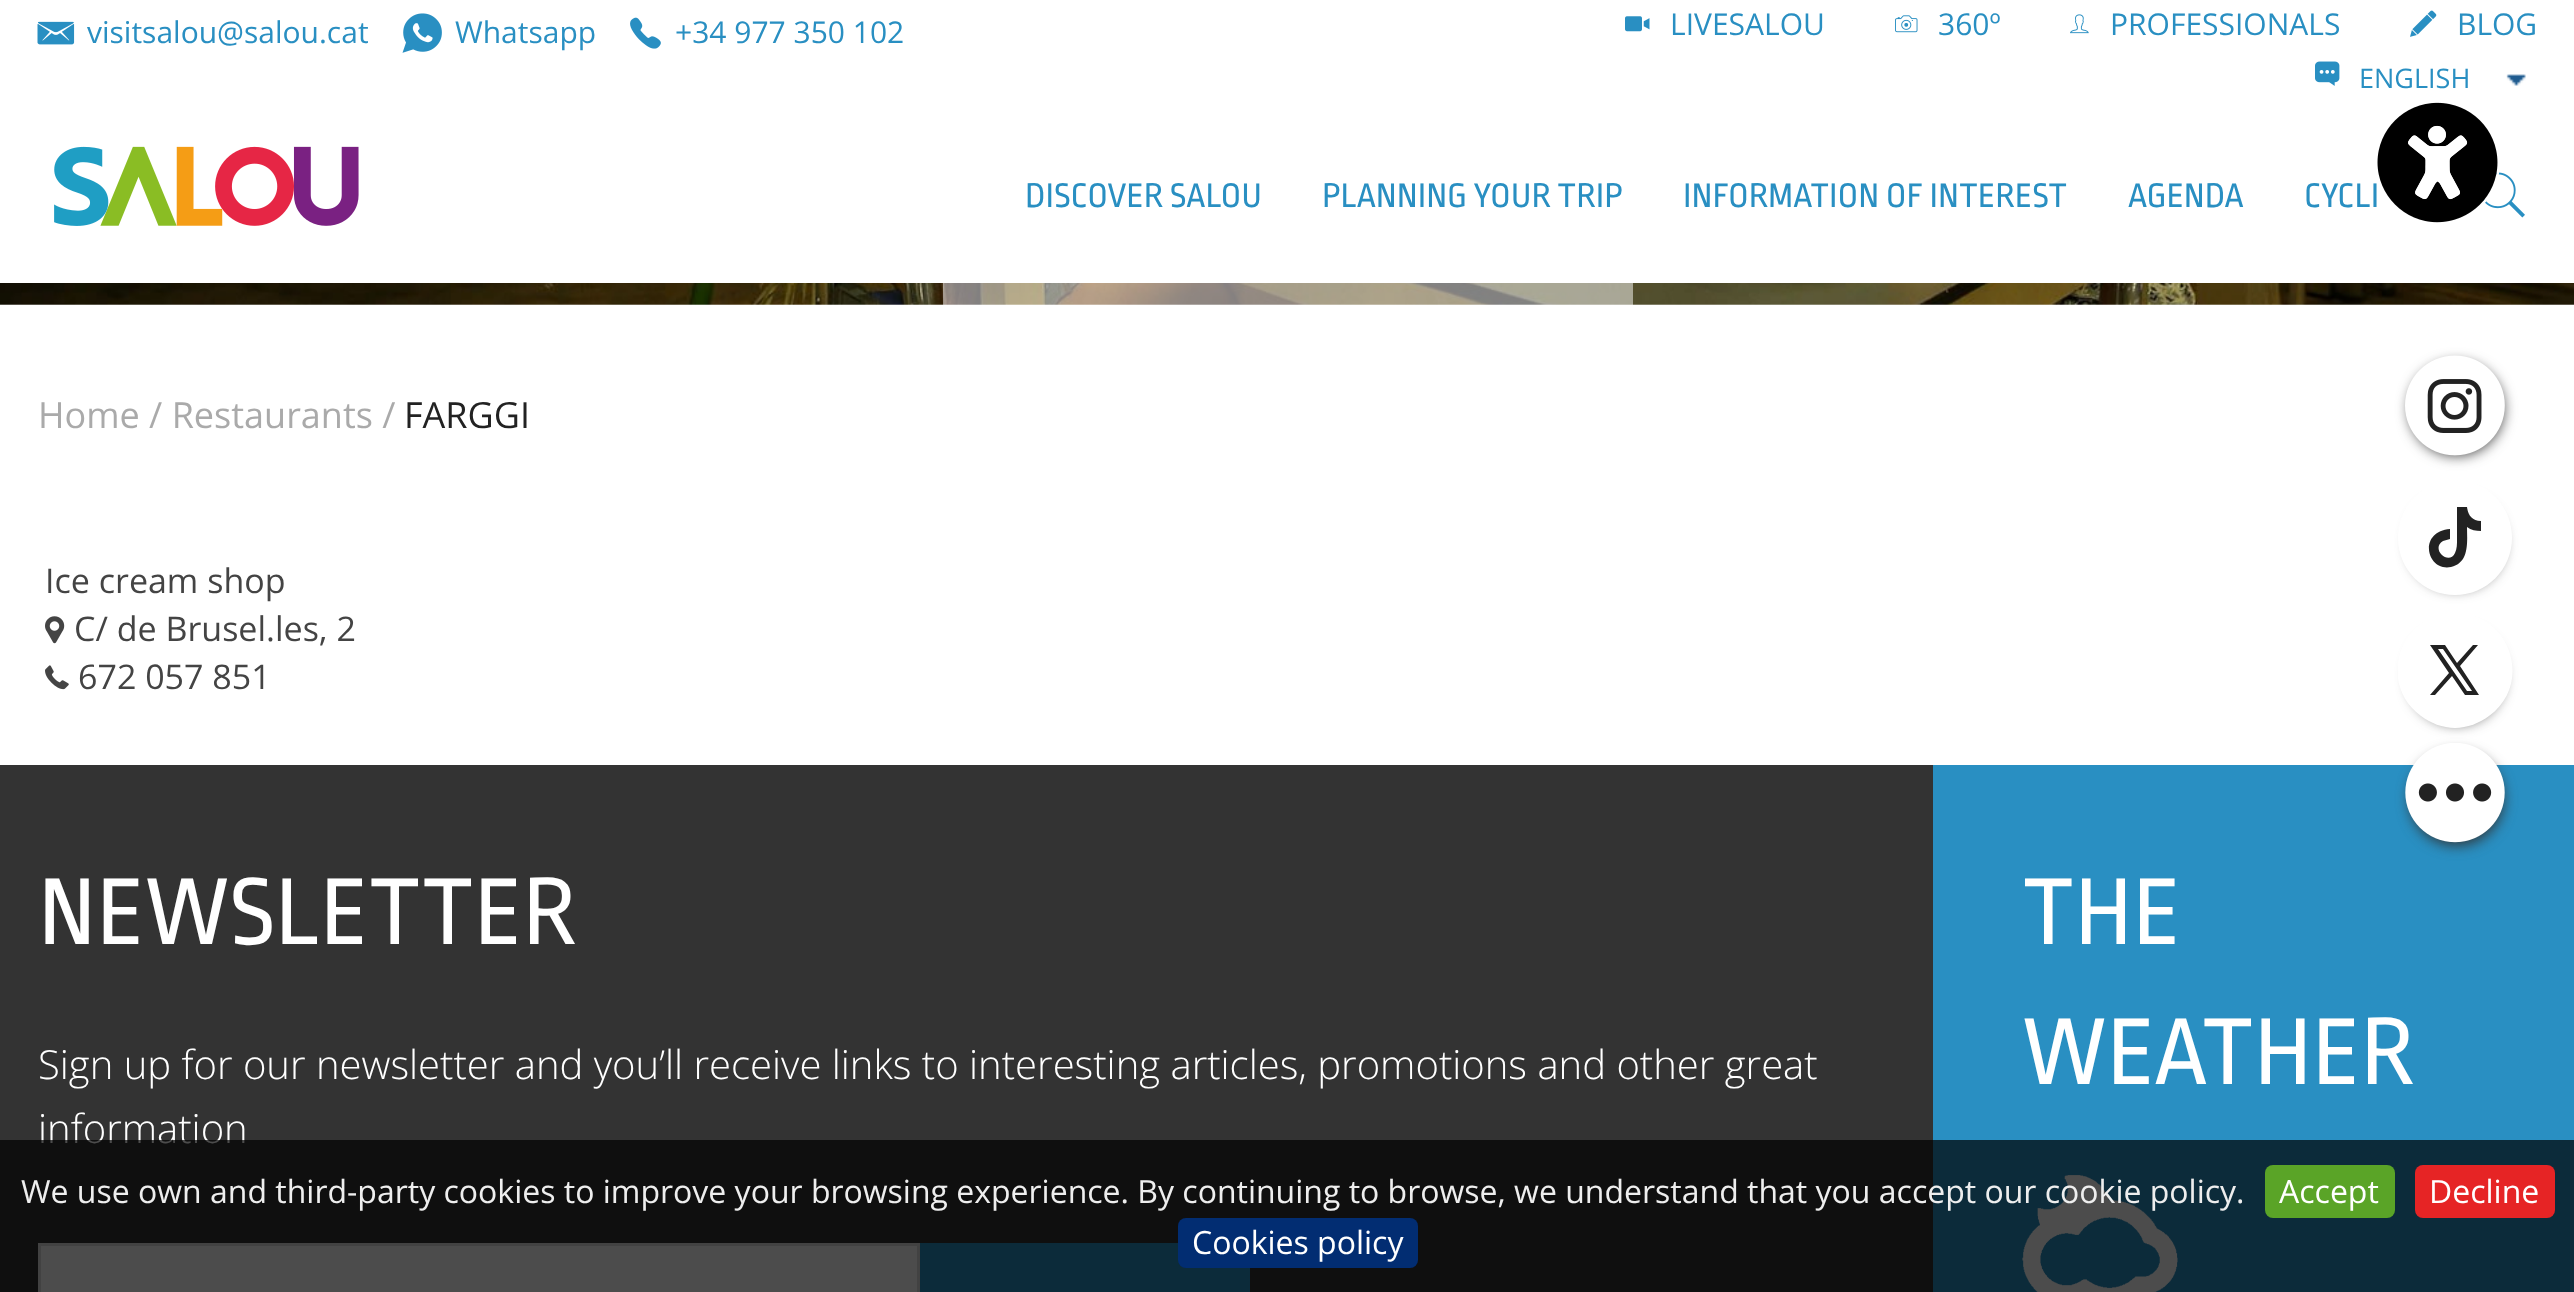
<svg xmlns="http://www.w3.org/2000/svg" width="2574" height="1292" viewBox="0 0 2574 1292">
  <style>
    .t1 { font: 30px Open Sans; fill: #298fc2; }
    .t2 { font: 27px Open Sans; fill: #298fc2; }
    .t3 { font: 36px Ropa Sans; fill: #298fc2; }
    .t4 { font: 36px Open Sans; fill: #aaa; }
    .t5 { font: 36px Open Sans; fill: #222; }
    .t6 { font: 34px Open Sans; fill: #444; }
    .t7 { font: 100px Ropa Sans; fill: #fff; }
    .t8 { font: 300 40px Open Sans; fill: #fff; }
    .t9 { font: 32px Open Sans; fill: #eee; }
    .t10 { font: 32px Open Sans; fill: #fff; }
  </style>
  <defs>
    <clipPath id="clip1"><rect x="2398" y="613" width="115" height="115"/></clipPath>
  </defs>
  <rect width="100%" height="100%" fill="#fff"/>
  <image x="37" y="21" width="38" height="24" href="images/1.png"/>
  <text x="87" y="43" class="t1">visitsalou@salou.cat</text>
  <image x="402" y="13" width="40" height="40" href="images/2.png"/>
  <text x="455" y="43" class="t1">Whatsapp</text>
  <image x="630" y="17" width="31" height="32" href="images/3.png"/>
  <text x="675" y="43" class="t1">+34 977 350 102</text>
  <image x="1625" y="16" width="25" height="16" href="images/4.png"/>
  <text x="1670" y="35" class="t1">LIVESALOU</text>
  <image x="1895" y="15" width="23" height="18" href="images/5.png"/>
  <text x="1938" y="35" class="t1">360º</text>
  <image x="2070" y="14" width="19" height="20" href="images/6.png"/>
  <text x="2110" y="35" class="t1">PROFESSIONALS</text>
  <image x="2410" y="10" width="27" height="27" href="images/7.png"/>
  <text x="2457" y="35" class="t1">BLOG</text>
  <image x="2315" y="61" width="25" height="25" href="images/8.png"/>
  <text x="2359" y="88" class="t2">ENGLISH</text>
  <image x="2506" y="74" width="20" height="12" href="images/9.png"/>
  <image x="54" y="146" width="305" height="80" href="images/10.png"/>
  <text x="1025" y="207" class="t3">DISCOVER SALOU</text>
  <text x="1322" y="207" class="t3">PLANNING YOUR TRIP</text>
  <text x="1683" y="207" class="t3">INFORMATION OF INTEREST</text>
  <text x="2128" y="207" class="t3">AGENDA</text>
  <text x="2304" y="207" class="t3">CYCLI</text>
  <image x="2483" y="172" width="42" height="46" href="images/11.png"/>
  <image x="0" y="283" width="2574" height="22" href="images/12.png"/>
  <rect x="943" y="283" width="690" height="22" fill="#ffffff80"/>
  <text x="38" y="428" class="t4">Home / Restaurants /</text>
  <text x="404" y="428" class="t5">FARGGI</text>
  <text x="45" y="593" class="t6">Ice cream shop</text>
  <image x="45" y="616" width="20" height="28" href="images/13.png"/>
  <text x="74" y="641" class="t6">C/ de Brusel.les, 2</text>
  <image x="45" y="665" width="24" height="25" href="images/14.png"/>
  <text x="78" y="689" class="t6">672 057 851</text>
  <rect x="0" y="765" width="1933" height="527" fill="#333"/>
  <text x="38" y="944" class="t7">NEWSLETTER</text>
  <text x="38" y="1079" class="t8">Sign up for our newsletter and you’ll receive links to interesting articles, promotions and other great</text>
  <text x="38" y="1143" class="t8">information</text>
  <rect x="39.5" y="1244.5" width="879" height="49" fill="#fefefe" stroke="#ddd" stroke-width="3"/>
  <rect x="920" y="1243" width="330" height="49" fill="#298fc2"/>
  <rect x="1933" y="765" width="641" height="527" fill="#298fc2"/>
  <text x="2022" y="944" class="t7">THE</text>
  <text x="2022" y="1084" class="t7">WEATHER</text>
  <image x="2022" y="1175" width="156" height="117" href="images/15.png"/>
  <image x="2377" y="102" width="123" height="121" href="images/16.png"/>
  <rect x="2410" y="363" width="93" height="92" rx="46" fill="#333" filter="blur(7px)"/>
  <circle cx="2455" cy="403" r="45" fill="#222"/>
  <image x="2405" y="355" width="100" height="101" href="images/17.png"/>
  <rect x="2410" y="498" width="93" height="90" rx="45" fill="#333" filter="blur(7px)"/>
  <rect x="2410" y="490" width="90" height="93" rx="45" fill="#222"/>
  <path d="M2455 480C2423 480 2398 506 2398 538C2398 569 2423 595 2455 595C2487 595 2512 569 2512 538C2512 506 2487 480 2455 480ZM2481 531C2476 531 2471 530 2467 527C2467 541 2470 563 2451 567C2427 572 2417 532 2450 529V539L2443 541C2430 549 2449 566 2455 553C2457 549 2457 544 2457 540V507H2467C2468 515 2472 521 2481 521Z" fill="#fff"/>
  <rect x="2410" y="630" width="93" height="93" rx="46.5" fill="#333" filter="blur(7px)"/>
  <rect x="2410" y="625" width="90" height="93" rx="45" fill="#222"/>
  <g clip-path="url(#clip1)">
    <path d="M2455 728C2443 728 2430 723 2421 716C2376 683 2400 613 2455 613C2510 613 2534 683 2489 716C2480 723 2467 728 2455 728ZM2452 676L2465 695H2479L2460 666L2478 645H2473L2457 663L2445 645H2430L2449 673L2430 695H2435ZM2472 691H2467L2438 649H2443Z" fill="#fff"/>
  </g>
  <rect x="2410" y="753" width="93" height="92" rx="46" fill="#333" filter="blur(7px)"/>
  <rect x="2410" y="748" width="90" height="92" rx="45" fill="#222"/>
  <image x="2405" y="743" width="100" height="100" href="images/18.png"/>
  <rect x="0" y="1140" width="2574" height="152" fill="#000000b3"/>
  <text x="21" y="1203" class="t9">We use own and third-party cookies to improve your browsing experience. By continuing to browse, we understand that you accept our cookie policy.</text>
  <rect x="2265" y="1165" width="130" height="53" rx="8" fill="#5aa427"/>
  <text x="2279" y="1203" class="t10">Accept</text>
  <rect x="2415" y="1165" width="140" height="53" rx="8" fill="#e62425"/>
  <text x="2429" y="1203" class="t10">Decline</text>
  <rect x="1178" y="1218" width="240" height="50" rx="8" fill="#022d72"/>
  <text x="1192" y="1254" class="t10">Cookies policy</text>
</svg>
